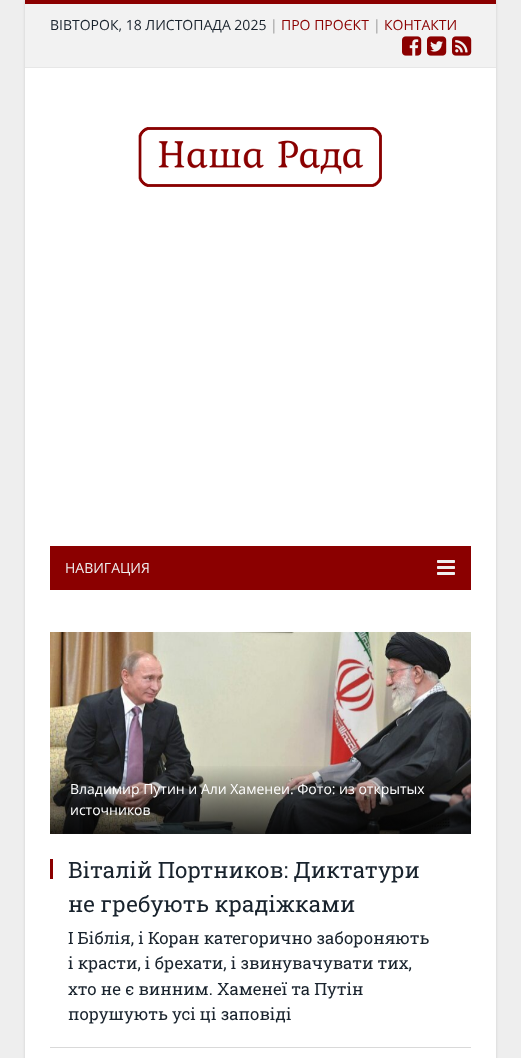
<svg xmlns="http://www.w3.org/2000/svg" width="521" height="1058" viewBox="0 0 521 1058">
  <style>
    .t1 { font: 14px Open Sans; fill: #19232d; }
    .t2 { font: 14px Open Sans; fill: #999; }
    .t3 { font: 14px Open Sans; fill: #8b0000; }
    .t4 { font: 14px Open Sans; fill: #efefef; }
    .t5 { font: 14px Open Sans; fill: #fff; }
    .t6 { font: 22.4px Roboto Slab; fill: #19232d; }
    .t7 { font: 16.8px Roboto Slab; fill: #19232d; }
  </style>
  <defs>
    <linearGradient id="g1" gradientUnits="userSpaceOnUse" x1="261" y1="764" x2="261" y2="834"><stop offset="0" stop-color="#000" stop-opacity="0"/><stop offset="1" stop-color="#000" stop-opacity="0.8"/></linearGradient>
  </defs>
  <rect width="100%" height="100%" fill="#eee"/>
  <rect x="25" y="0" width="471" height="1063" fill="#0000001f" filter="blur(1.5px)"/>
  <rect x="25" y="68" width="471" height="990" fill="#fff"/>
  <rect x="25" y="4" width="471" height="63" fill="#f2f2f2"/>
  <rect x="25" y="0" width="471" height="4" fill="#8b0000"/>
  <rect x="25" y="67" width="471" height="1" fill="#e7e7e7"/>
  <text x="50" y="30" class="t1">ВІВТОРОК, 18 ЛИСТОПАДА 2025</text>
  <text x="270" y="30" class="t2">|</text>
  <text x="281" y="30" class="t3">ПРО ПРОЄКТ</text>
  <text x="373" y="30" class="t2">|</text>
  <text x="384" y="30" class="t3">КОНТАКТИ</text>
  <image x="402" y="36" width="20" height="20" href="images/1.png"/>
  <image x="427" y="36" width="20" height="20" href="images/2.png"/>
  <image x="452" y="36" width="20" height="20" href="images/3.png"/>
  <image x="138" y="127" width="244" height="60" href="images/4.png"/>
  <rect x="50" y="546" width="421" height="44" fill="#8b0000"/>
  <text x="65" y="573" class="t4">НАВИГАЦИЯ</text>
  <image x="437" y="560" width="18" height="15" href="images/5.png"/>
  <image x="50" y="632" width="421" height="202" href="images/6.png"/>
  <rect x="50" y="766" width="421" height="68" fill="url(#g1)"/>
  <text x="70" y="794" class="t5">Владимир Путин и Али Хаменеи. Фото: из открытых</text>
  <text x="70" y="815" class="t5">источников</text>
  <rect x="50" y="859" width="3" height="20" fill="#8b0000"/>
  <text x="68" y="878" class="t6">Віталій Портников: Диктатури</text>
  <text x="68" y="912" class="t6">не гребують крадіжками</text>
  <text x="68" y="944" class="t7">І Біблія, і Коран категорично забороняють</text>
  <text x="68" y="969" class="t7">і красти, і брехати, і звинувачувати тих,</text>
  <text x="68" y="995" class="t7">хто не є винним. Хаменеї та Путін</text>
  <text x="68" y="1020" class="t7">порушують усі ці заповіді</text>
  <rect x="50" y="1047" width="421" height="1" fill="#d9d9d9"/>
</svg>
